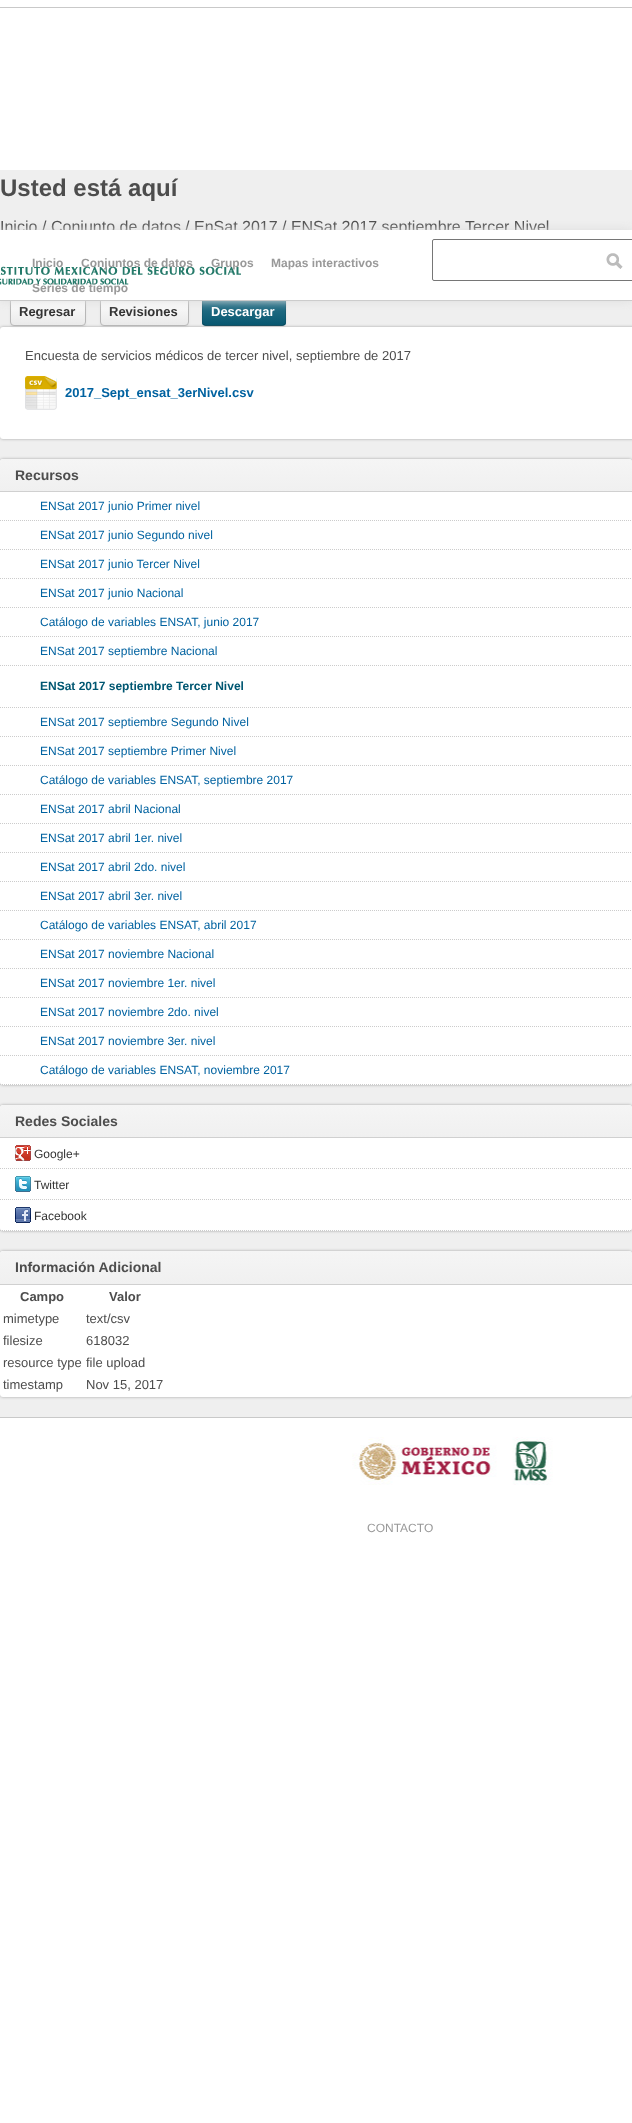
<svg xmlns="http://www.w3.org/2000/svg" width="632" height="2123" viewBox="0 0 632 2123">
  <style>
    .t1 { font: bold 24px Liberation Sans; fill: #4d4d4d; }
    .t2 { font: 16px Liberation Sans; fill: #4d4d4d; }
    .t3 { font: bold 13px Liberation Sans; fill: #333; }
    .t4 { font: bold 13px Liberation Sans; fill: #fff; }
    .t5 { font: 13px Liberation Sans; fill: #4d4d4d; }
    .t6 { font: bold 13px Liberation Sans; fill: #0062a0; }
    .t7 { font: bold 14px Liberation Sans; fill: #4d4d4d; }
    .t8 { font: 12px Liberation Sans; fill: #0062a0; }
    .t9 { font: bold 12px Liberation Sans; fill: #005772; }
    .t10 { font: 12px Liberation Sans; fill: #333; }
    .t11 { font: bold 13px Liberation Sans; fill: #4d4d4d; }
    .t12 { font: bold 12px Liberation Sans; fill: #999; }
    .t13 { font: 12px Liberation Sans; fill: #999; }
  </style>
  <defs>
    <clipPath id="clip1"><rect x="10" y="297" width="76" height="29" rx="4"/></clipPath>
    <linearGradient id="g1" gradientUnits="userSpaceOnUse" x1="48" y1="298" x2="48" y2="325"><stop offset="0" stop-color="#fff"/><stop offset="1" stop-color="#eaeaea"/></linearGradient>
    <clipPath id="clip2"><rect x="100" y="297" width="89" height="29" rx="4"/></clipPath>
    <linearGradient id="g2" gradientUnits="userSpaceOnUse" x1="145" y1="298" x2="145" y2="325"><stop offset="0" stop-color="#fff"/><stop offset="1" stop-color="#eaeaea"/></linearGradient>
    <clipPath id="clip3"><rect x="202" y="297" width="84" height="29" rx="4"/></clipPath>
    <linearGradient id="g3" gradientUnits="userSpaceOnUse" x1="244" y1="298" x2="244" y2="325"><stop offset="0" stop-color="#30778d"/><stop offset="1" stop-color="#085871"/></linearGradient>
    <linearGradient id="g4" gradientUnits="userSpaceOnUse" x1="316" y1="459" x2="316" y2="491"><stop offset="0" stop-color="#f5f5f5"/><stop offset="1" stop-color="#f0f0f0"/></linearGradient>
    <linearGradient id="g5" gradientUnits="userSpaceOnUse" x1="316" y1="1105" x2="316" y2="1137"><stop offset="0" stop-color="#f5f5f5"/><stop offset="1" stop-color="#f0f0f0"/></linearGradient>
    <linearGradient id="g6" gradientUnits="userSpaceOnUse" x1="316" y1="1251" x2="316" y2="1284"><stop offset="0" stop-color="#f5f5f5"/><stop offset="1" stop-color="#f0f0f0"/></linearGradient>
  </defs>
  <rect width="100%" height="100%" fill="#fff"/>
  <rect x="0" y="170" width="632" height="1247" fill="#efefef"/>
  <text x="0" y="196" class="t1">Usted está aquí</text>
  <text x="0" y="232" class="t2">Inicio</text>
  <text x="42" y="232" class="t2">/</text>
  <text x="51" y="232" class="t2">Conjunto de datos</text>
  <text x="185" y="232" class="t2">/</text>
  <text x="194" y="232" class="t2">EnSat 2017</text>
  <text x="282" y="232" class="t2">/ ENSat 2017 septiembre Tercer Nivel</text>
  <rect x="0" y="327" width="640" height="112" rx="3" fill="#0000004d" filter="blur(1.5px)"/>
  <rect x="0" y="327" width="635" height="112" rx="3" fill="#fff"/>
  <rect x="10" y="298" width="76" height="29" rx="4" fill="#0000000d" filter="blur(1px)"/>
  <g clip-path="url(#clip1)">
    <rect x="10" y="301" width="76" height="24" fill="url(#g1)"/>
  </g>
  <rect x="10.5" y="297.5" width="75" height="28" rx="3.5" fill="none" stroke="#b7b7b7"/>
  <text x="19" y="316" class="t3">Regresar</text>
  <rect x="100" y="298" width="89" height="29" rx="4" fill="#0000000d" filter="blur(1px)"/>
  <g clip-path="url(#clip2)">
    <rect x="100" y="301" width="89" height="24" fill="url(#g2)"/>
  </g>
  <rect x="100.5" y="297.5" width="88" height="28" rx="3.5" fill="none" stroke="#b7b7b7"/>
  <text x="109" y="316" class="t3">Revisiones</text>
  <rect x="202" y="298" width="84" height="29" rx="4" fill="#0000000d" filter="blur(1px)"/>
  <rect x="202" y="297" width="84" height="29" rx="4" fill="#206b82"/>
  <g clip-path="url(#clip3)">
    <rect x="202" y="301" width="84" height="24" fill="url(#g3)"/>
  </g>
  <path d="M284.5 324.5L282.5 325.5H205.5L203.5 324.5" fill="none" stroke="#00000040"/>
  <path d="M203.5 324.5C201.5 322.5 202.5 314 202.5 311.5C202.5 295 200.5 297.5 218.5 297.5H269.5C289 297.5 285.5 295.5 285.5 315C285.5 317.5 286.5 322.5 284.5 324.5" fill="none" stroke="#0000001a"/>
  <text x="211" y="316" class="t4">Descargar</text>
  <text x="25" y="360" class="t5">Encuesta de servicios médicos de tercer nivel, septiembre de 2017</text>
  <image x="25" y="376" width="32" height="34" href="images/1.png"/>
  <text x="65" y="397" class="t6">2017_Sept_ensat_3erNivel.csv</text>
  <rect x="0" y="7" width="632" height="1" fill="#c9c9c9"/>
  <rect x="0" y="459" width="632" height="626" rx="3" fill="#0000004d" filter="blur(1.5px)"/>
  <rect x="0" y="459" width="632" height="626" rx="3" fill="#fff"/>
  <path d="M3 459H629C630.5 459 632 460.5 632 462V491H0V462C0 460.5 1.5 459 3 459Z" fill="url(#g4)"/>
  <rect x="0" y="491" width="632" height="1" fill="#d0d0d0"/>
  <text x="15" y="480" class="t7">Recursos</text>
  <path d="M0 520.5H632" fill="none" stroke="#ccc" stroke-dasharray="1 1"/>
  <text x="40" y="510" class="t8">ENSat 2017 junio Primer nivel</text>
  <path d="M0 549.5H632" fill="none" stroke="#ccc" stroke-dasharray="1 1"/>
  <text x="40" y="539" class="t8">ENSat 2017 junio Segundo nivel</text>
  <path d="M0 578.5H632" fill="none" stroke="#ccc" stroke-dasharray="1 1"/>
  <text x="40" y="568" class="t8">ENSat 2017 junio Tercer Nivel</text>
  <path d="M0 607.5H632" fill="none" stroke="#ccc" stroke-dasharray="1 1"/>
  <text x="40" y="597" class="t8">ENSat 2017 junio Nacional</text>
  <path d="M0 636.5H632" fill="none" stroke="#ccc" stroke-dasharray="1 1"/>
  <text x="40" y="626" class="t8">Catálogo de variables ENSAT, junio 2017</text>
  <path d="M0 665.5H632" fill="none" stroke="#ccc" stroke-dasharray="1 1"/>
  <text x="40" y="655" class="t8">ENSat 2017 septiembre Nacional</text>
  <path d="M0 707.5H632" fill="none" stroke="#ccc" stroke-dasharray="1 1"/>
  <text x="40" y="690" class="t9">ENSat 2017 septiembre Tercer Nivel</text>
  <path d="M0 736.5H632" fill="none" stroke="#ccc" stroke-dasharray="1 1"/>
  <text x="40" y="726" class="t8">ENSat 2017 septiembre Segundo Nivel</text>
  <path d="M0 765.5H632" fill="none" stroke="#ccc" stroke-dasharray="1 1"/>
  <text x="40" y="755" class="t8">ENSat 2017 septiembre Primer Nivel</text>
  <path d="M0 794.5H632" fill="none" stroke="#ccc" stroke-dasharray="1 1"/>
  <text x="40" y="784" class="t8">Catálogo de variables ENSAT, septiembre 2017</text>
  <path d="M0 823.5H632" fill="none" stroke="#ccc" stroke-dasharray="1 1"/>
  <text x="40" y="813" class="t8">ENSat 2017 abril Nacional</text>
  <path d="M0 852.5H632" fill="none" stroke="#ccc" stroke-dasharray="1 1"/>
  <text x="40" y="842" class="t8">ENSat 2017 abril 1er. nivel</text>
  <path d="M0 881.5H632" fill="none" stroke="#ccc" stroke-dasharray="1 1"/>
  <text x="40" y="871" class="t8">ENSat 2017 abril 2do. nivel</text>
  <path d="M0 910.5H632" fill="none" stroke="#ccc" stroke-dasharray="1 1"/>
  <text x="40" y="900" class="t8">ENSat 2017 abril 3er. nivel</text>
  <path d="M0 939.5H632" fill="none" stroke="#ccc" stroke-dasharray="1 1"/>
  <text x="40" y="929" class="t8">Catálogo de variables ENSAT, abril 2017</text>
  <path d="M0 968.5H632" fill="none" stroke="#ccc" stroke-dasharray="1 1"/>
  <text x="40" y="958" class="t8">ENSat 2017 noviembre Nacional</text>
  <path d="M0 997.5H632" fill="none" stroke="#ccc" stroke-dasharray="1 1"/>
  <text x="40" y="987" class="t8">ENSat 2017 noviembre 1er. nivel</text>
  <path d="M0 1026.5H632" fill="none" stroke="#ccc" stroke-dasharray="1 1"/>
  <text x="40" y="1016" class="t8">ENSat 2017 noviembre 2do. nivel</text>
  <path d="M0 1055.5H632" fill="none" stroke="#ccc" stroke-dasharray="1 1"/>
  <text x="40" y="1045" class="t8">ENSat 2017 noviembre 3er. nivel</text>
  <path d="M0 1084.5H632" fill="none" stroke="#ccc" stroke-dasharray="1 1"/>
  <text x="40" y="1074" class="t8">Catálogo de variables ENSAT, noviembre 2017</text>
  <rect x="0" y="1105" width="632" height="126" rx="3" fill="#0000004d" filter="blur(1.5px)"/>
  <rect x="0" y="1105" width="632" height="126" rx="3" fill="#fff"/>
  <path d="M3 1105H629C630.5 1105 632 1106.5 632 1108V1137H0V1108C0 1106.5 1.5 1105 3 1105Z" fill="url(#g5)"/>
  <rect x="0" y="1137" width="632" height="1" fill="#d0d0d0"/>
  <text x="15" y="1126" class="t7">Redes Sociales</text>
  <path d="M0 1168.5H632" fill="none" stroke="#ccc" stroke-dasharray="1 1"/>
  <image x="15" y="1145" width="16" height="16" href="images/2.png"/>
  <text x="34" y="1158" class="t10">Google+</text>
  <path d="M0 1199.5H632" fill="none" stroke="#ccc" stroke-dasharray="1 1"/>
  <image x="15" y="1176" width="16" height="16" href="images/3.png"/>
  <text x="34" y="1189" class="t10">Twitter</text>
  <path d="M0 1230.5H632" fill="none" stroke="#ccc" stroke-dasharray="1 1"/>
  <image x="15" y="1207" width="16" height="16" href="images/4.png"/>
  <text x="34" y="1220" class="t10">Facebook</text>
  <rect x="0" y="1251" width="632" height="146" rx="3" fill="#0000004d" filter="blur(1.5px)"/>
  <rect x="0" y="1251" width="632" height="146" rx="3" fill="#fff"/>
  <path d="M3 1251H629C630.5 1251 632 1252.5 632 1254V1284H0V1254C0 1252.5 1.5 1251 3 1251Z" fill="url(#g6)"/>
  <rect x="0" y="1284" width="632" height="1" fill="#d0d0d0"/>
  <text x="15" y="1272" class="t7">Información Adicional</text>
  <text x="20" y="1301" class="t11">Campo</text>
  <text x="109" y="1301" class="t11">Valor</text>
  <text x="3" y="1323" class="t5">mimetype</text>
  <text x="86" y="1323" class="t5">text/csv</text>
  <text x="3" y="1345" class="t5">filesize</text>
  <text x="86" y="1345" class="t5">618032</text>
  <text x="3" y="1367" class="t5">resource type</text>
  <text x="86" y="1367" class="t5">file upload</text>
  <text x="3" y="1389" class="t5">timestamp</text>
  <text x="86" y="1389" class="t5">Nov 15, 2017</text>
  <rect x="0" y="230" width="632" height="71" fill="#ddd" filter="blur(5px)"/>
  <rect x="0" y="230" width="632" height="70" fill="#fff"/>
  <rect x="0" y="300" width="632" height="1" fill="#ccc"/>
  <image x="0" y="266" width="241" height="19" href="images/6.png"/>
  <text x="32" y="267" class="t12">Inicio</text>
  <text x="81" y="267" class="t12">Conjuntos de datos</text>
  <text x="211" y="267" class="t12">Grupos</text>
  <text x="271" y="267" class="t12">Mapas interactivos</text>
  <text x="32" y="292" class="t12">Series de tiempo</text>
  <rect x="432.5" y="239.5" width="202" height="41" rx="1.5" fill="none" stroke="#767676"/>
  <image x="606" y="253" width="17" height="16" href="images/5.png"/>
  <rect x="0" y="1417" width="632" height="1" fill="#c9c9c9"/>
  <image x="352" y="1437" width="201" height="48" href="images/7.png"/>
  <text x="367" y="1532" class="t13">CONTACTO</text>
</svg>
